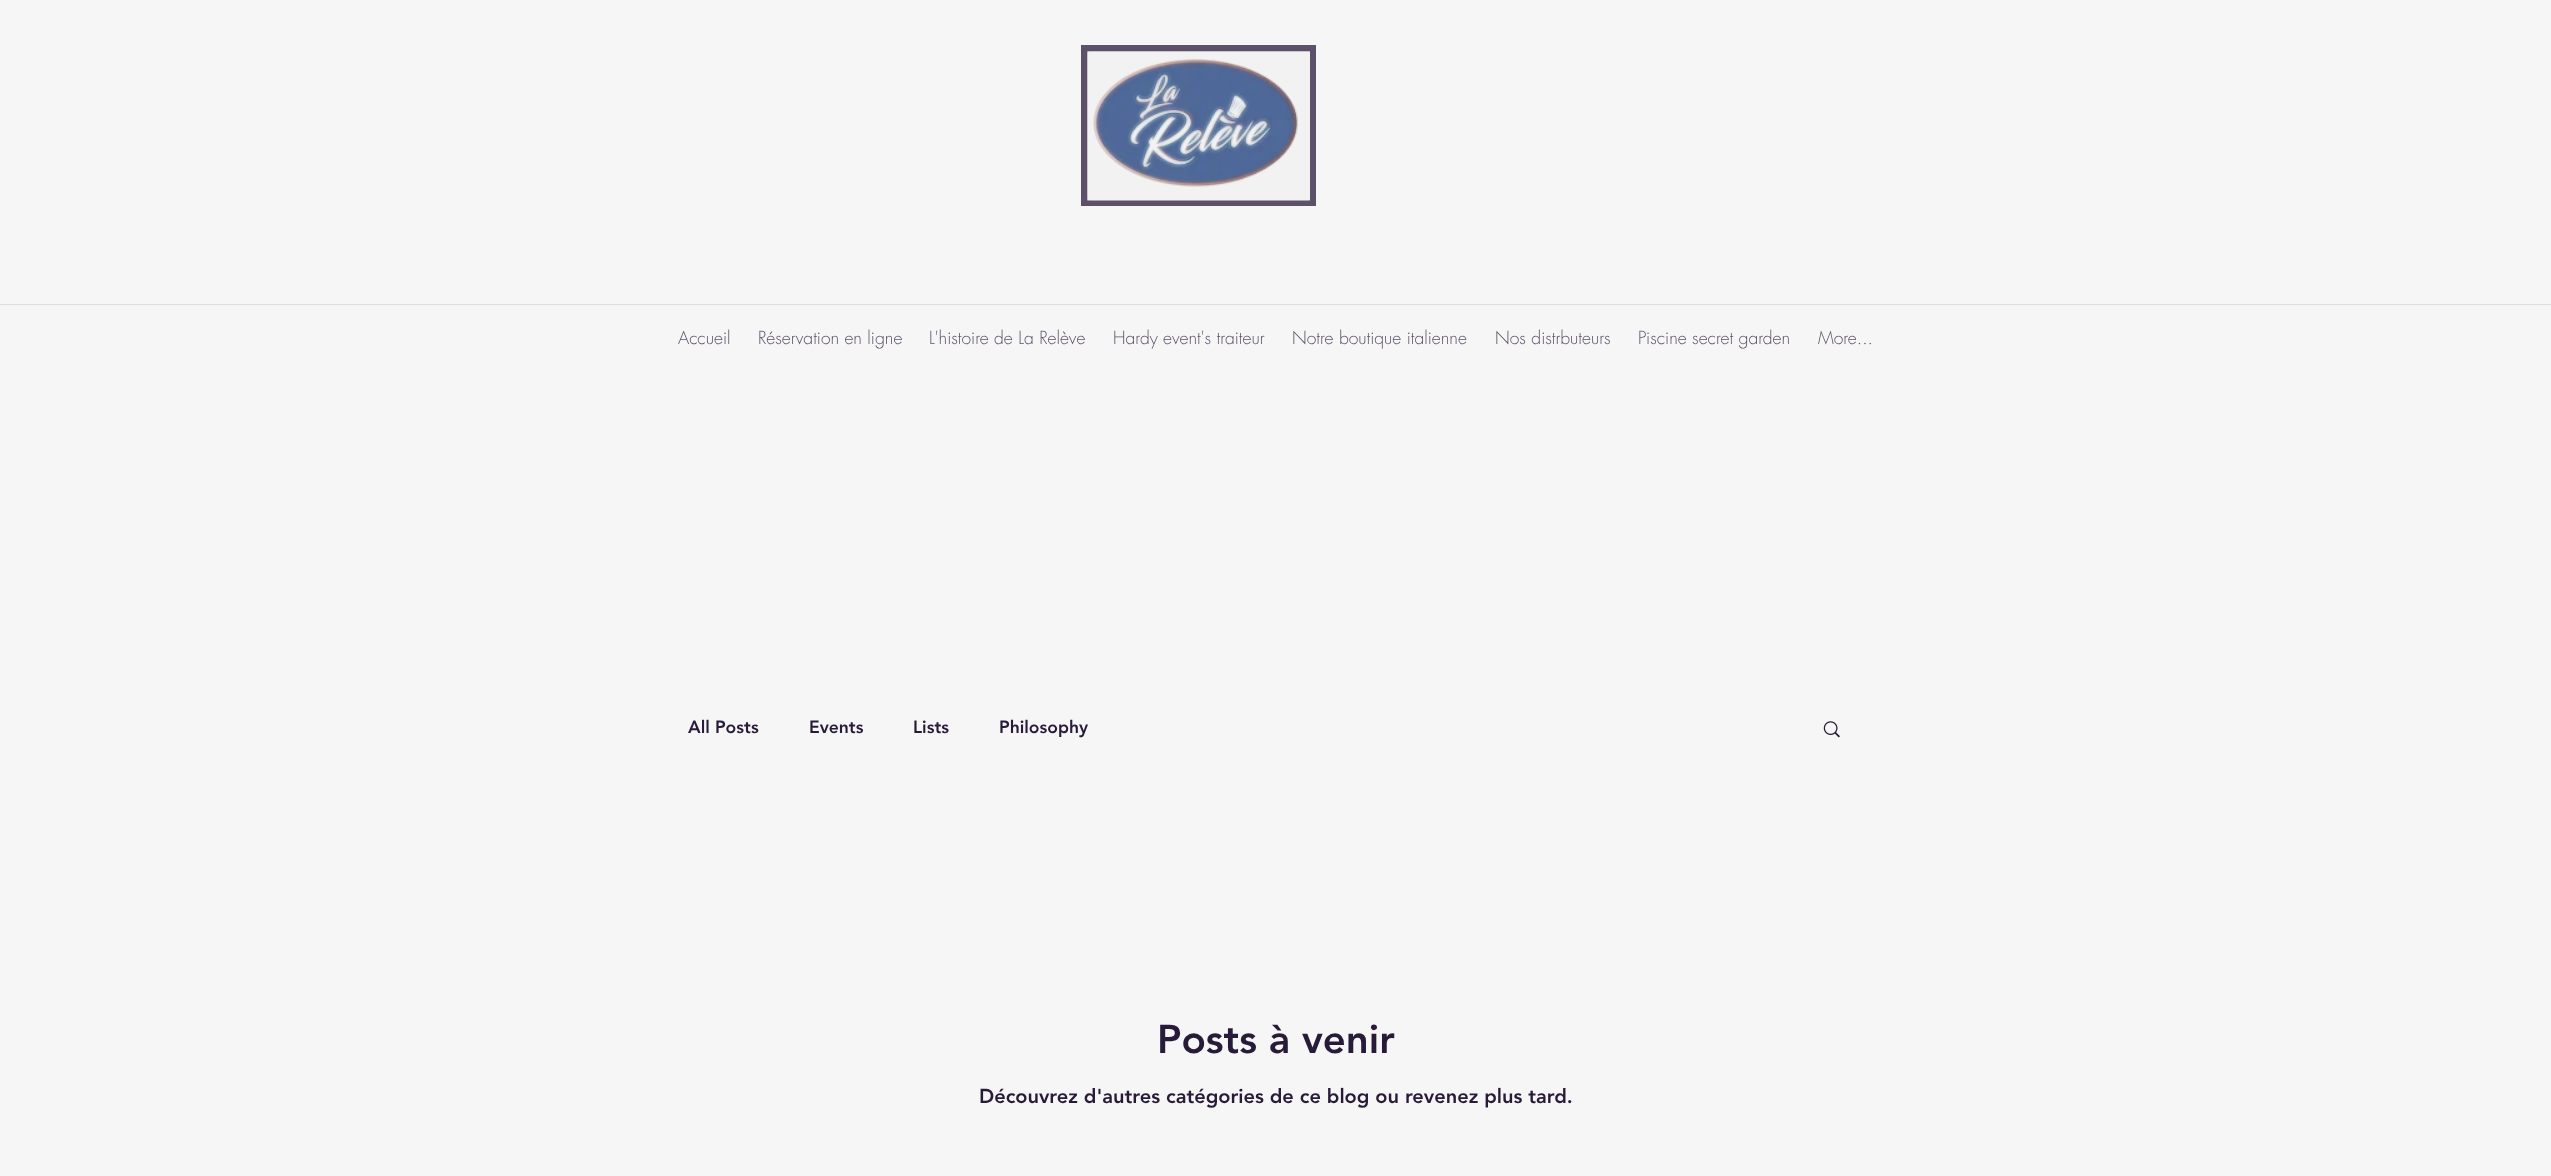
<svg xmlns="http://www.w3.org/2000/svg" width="2551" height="1176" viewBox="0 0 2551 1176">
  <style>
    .t1 { font: 300 17.5px futura; fill: #5c5168; }
    .t2 { font: 900 17.5px 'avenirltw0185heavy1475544'; fill: #281a39; }
    .t3 { font: 900 40px 'avenirltw0185heavy1475544'; fill: #281a39; }
    .t4 { font: 900 20px 'avenirltw0185heavy1475544'; fill: #281a39; }
  </style>
  <rect width="100%" height="100%" fill="#f6f6f6"/>
  <rect x="1081" y="45" width="235" height="161" fill="#5c5168"/>
  <image x="1087" y="51" width="223" height="150" href="images/1.png"/>
  <rect x="0" y="304" width="2551" height="1" fill="#dfdde1"/>
  <text x="678" y="344" class="t1">Accueil</text>
  <text x="758" y="344" class="t1">Réservation en ligne</text>
  <text x="929" y="344" class="t1">L'histoire de La Relève</text>
  <text x="1113" y="344" class="t1">Hardy event's traiteur</text>
  <text x="1292" y="344" class="t1">Notre boutique italienne</text>
  <text x="1495" y="344" class="t1">Nos distrbuteurs</text>
  <text x="1638" y="344" class="t1">Piscine secret garden</text>
  <text x="1818" y="344" class="t1">More...</text>
  <text x="688" y="733" class="t2">All Posts</text>
  <text x="809" y="733" class="t2">Events</text>
  <text x="913" y="733" class="t2">Lists</text>
  <text x="999" y="733" class="t2">Philosophy</text>
  <image x="1823" y="721" width="17" height="17" href="images/2.png"/>
  <text x="1157" y="1053" class="t3">Posts à venir</text>
  <text x="979" y="1103" class="t4">Découvrez d'autres catégories de ce blog ou revenez plus tard.</text>
</svg>
